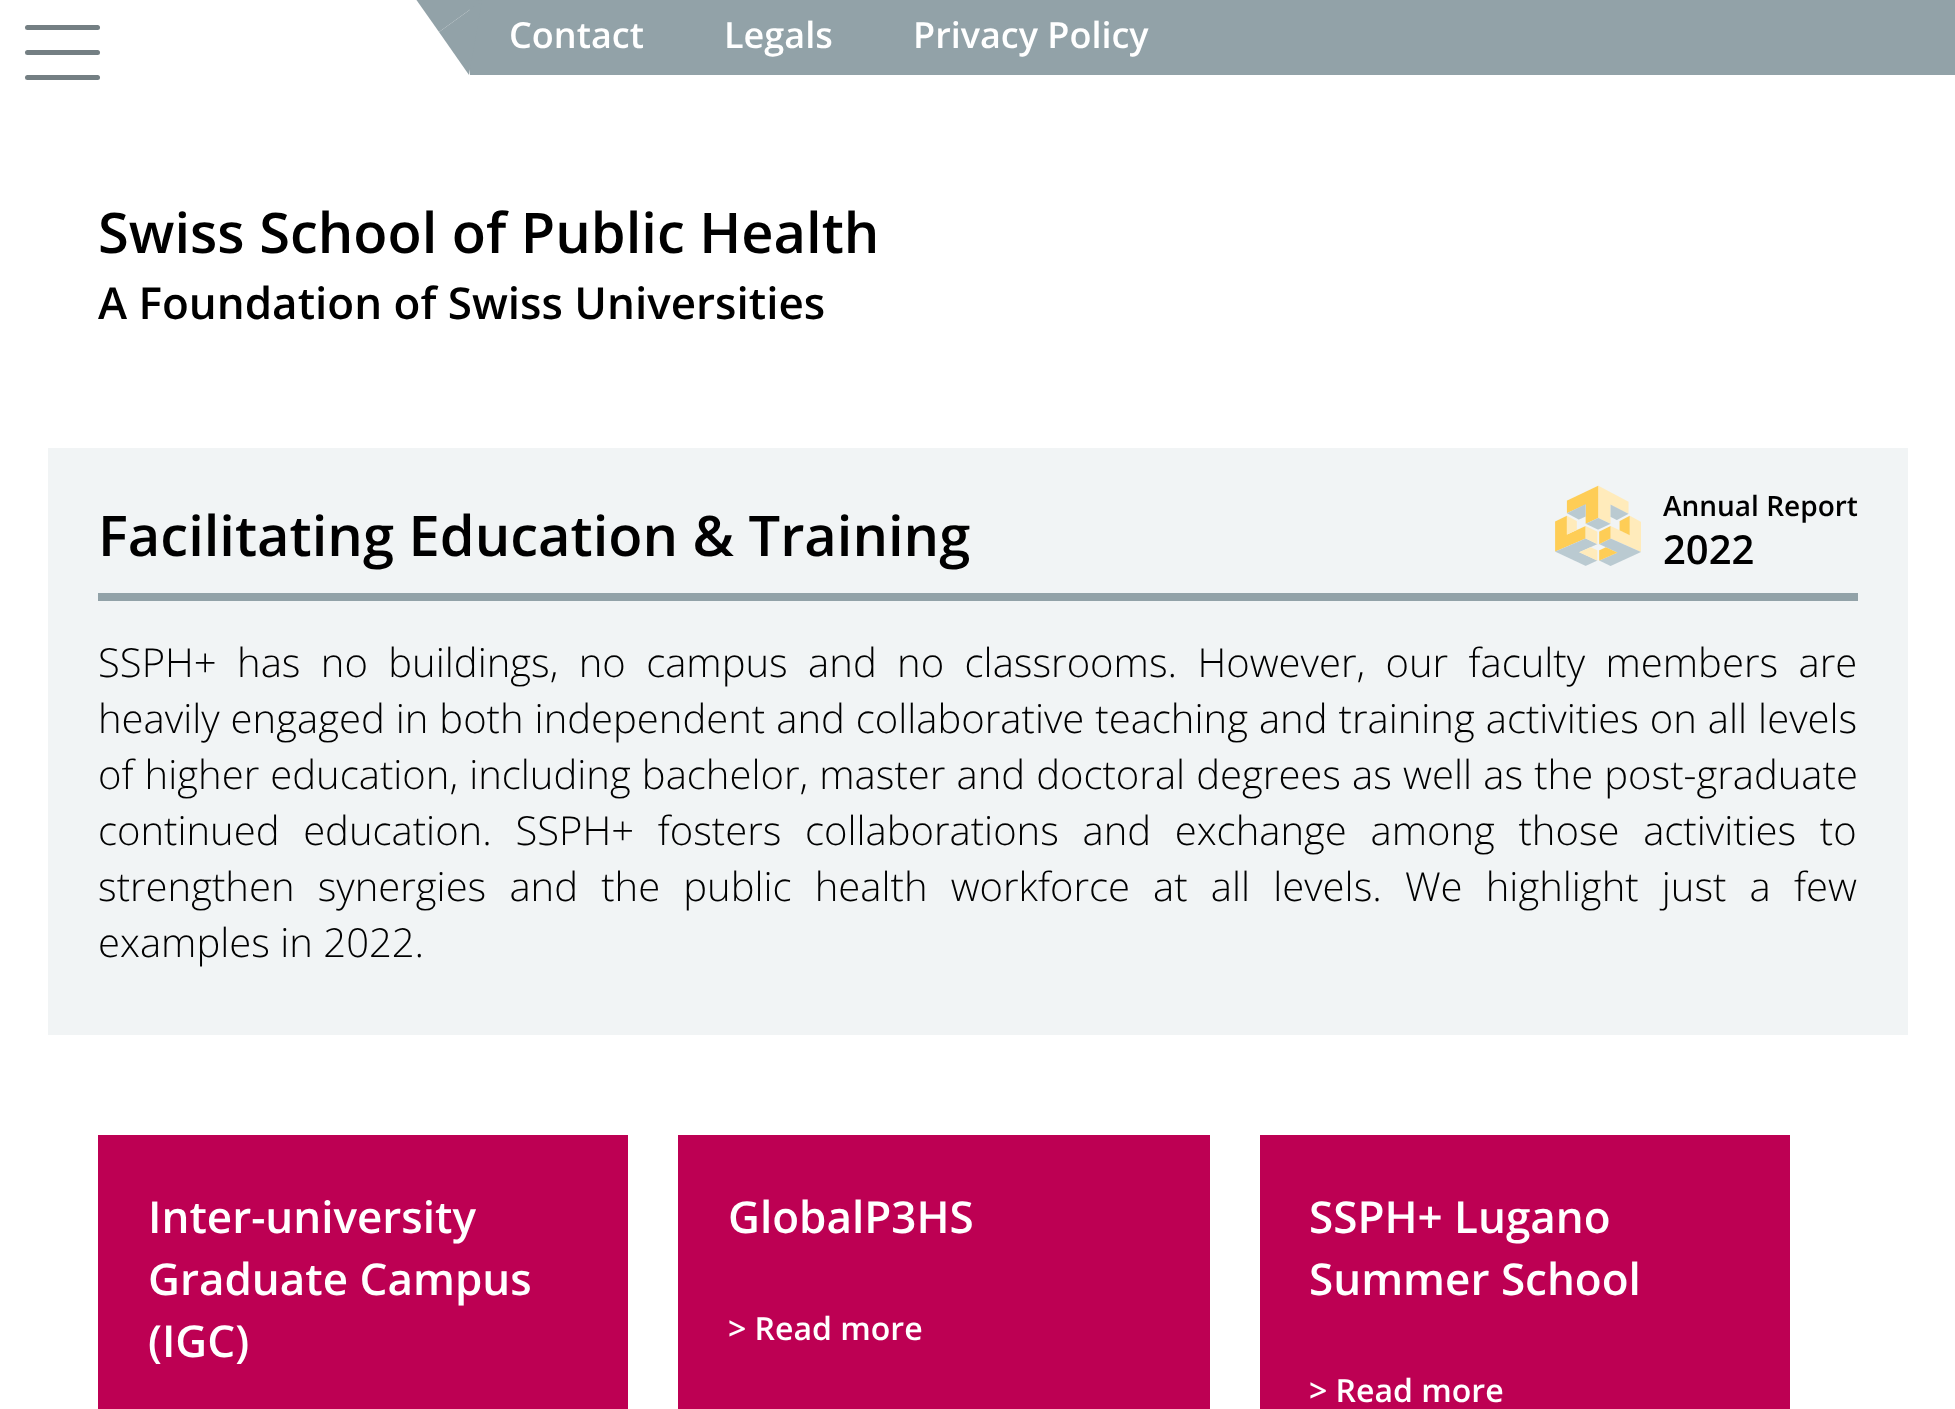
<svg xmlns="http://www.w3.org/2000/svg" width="1955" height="1409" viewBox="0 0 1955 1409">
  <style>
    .t1 { font: 600 36px Open Sans; fill: #fff; }
    .t2 { font: 600 56px Open Sans; fill: #000; }
    .t3 { font: 600 44px Open Sans; fill: #000; }
    .t4 { font: 600 28px Open Sans; fill: #000; }
    .t5 { font: 600 40px Open Sans; fill: #000; }
    .t6 { font: 300 40px Open Sans; fill: #000; }
    .t7 { font: 600 44px Open Sans; fill: #fff; }
    .t8 { font: 600 32px Open Sans; fill: #fff; }
  </style>
  <rect width="100%" height="100%" fill="#fff"/>
  <rect x="25" y="50" width="75" height="5" rx="2.5" fill="#747f83"/>
  <rect x="25" y="25" width="75" height="5" rx="2.5" fill="#747f83"/>
  <rect x="25" y="75" width="75" height="5" rx="2.5" fill="#747f83"/>
  <rect x="470" y="0" width="1485" height="75" fill="#92a2a8"/>
  <path d="M408-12L482 1L439 32Z" fill="#92a2a8"/>
  <path d="M482 1L469 75L439 32Z" fill="#92a2a8"/>
  <text x="509" y="48" class="t1">Contact</text>
  <text x="724" y="48" class="t1">Legals</text>
  <text x="913" y="48" class="t1">Privacy Policy</text>
  <text x="98" y="253" class="t2">Swiss School of Public Health</text>
  <text x="98" y="319" class="t3">A Foundation of Swiss Universities</text>
  <rect x="48" y="448" width="1860" height="587" fill="#f1f4f5"/>
  <rect x="98" y="593" width="1760" height="8" fill="#92a2a8"/>
  <text x="98" y="556" class="t2">Facilitating Education &amp; Training</text>
  <image x="1555" y="485" width="86" height="81" href="images/1.png"/>
  <text x="1663" y="516" class="t4">Annual Report</text>
  <text x="1663" y="564" class="t5">2022</text>
  <text x="98" y="677" word-spacing="10" class="t6">SSPH+ has no buildings, no campus and no classrooms. However, our faculty members are</text>
  <text x="98" y="733" word-spacing="0.6" class="t6">heavily engaged in both independent and collaborative teaching and training activities on all levels</text>
  <text x="98" y="789" word-spacing="0.75" class="t6">of higher education, including bachelor, master and doctoral degrees as well as the post-graduate</text>
  <text x="98" y="845" word-spacing="13.25" class="t6">continued education. SSPH+ fosters collaborations and exchange among those activities to</text>
  <text x="98" y="901" word-spacing="12.75" class="t6">strengthen synergies and the public health workforce at all levels. We highlight just a few</text>
  <text x="98" y="957" class="t6">examples in 2022.</text>
  <rect x="98" y="1135" width="530" height="274" fill="#bd0053"/>
  <text x="148" y="1233" class="t7">Inter-university</text>
  <text x="148" y="1295" class="t7">Graduate Campus</text>
  <text x="148" y="1357" class="t7">(IGC)</text>
  <rect x="678" y="1135" width="532" height="274" fill="#bd0053"/>
  <text x="728" y="1233" class="t7">GlobalP3HS</text>
  <text x="728" y="1340" class="t8">&gt; Read more</text>
  <rect x="1260" y="1135" width="530" height="274" fill="#bd0053"/>
  <text x="1309" y="1233" class="t7">SSPH+ Lugano</text>
  <text x="1309" y="1295" class="t7">Summer School</text>
  <text x="1309" y="1402" class="t8">&gt; Read more</text>
</svg>
